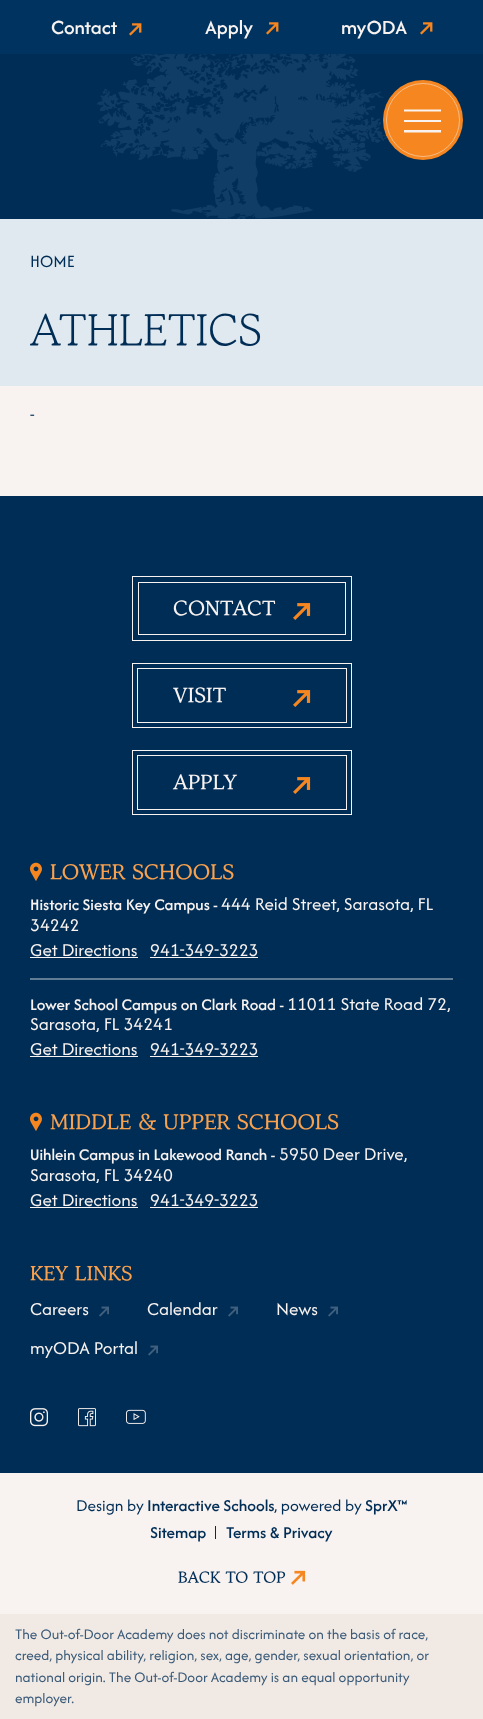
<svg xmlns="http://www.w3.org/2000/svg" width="483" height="1719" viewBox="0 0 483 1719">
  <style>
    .t1 { font: 500 21px Afacad; fill: #f8f3f0; }
    .t2 { font: 18px Afacad; fill: #002d56; }
    .t3 { font: 45px Gowun Batang; fill: #002d56; }
    .t4 { font: bold 21px Gowun Batang; fill: #f8f3f0; }
    .t5 { font: bold 21.5px Gowun Batang; fill: #f8a14e; }
    .t6 { font: 500 17px Afacad; fill: #f8f3f0; }
    .t7 { font: 19px Afacad; fill: #f8f3f0; }
    .t8 { font: bold 20.5px Gowun Batang; fill: #f8a14e; }
    .t9 { font: 17.25px Afacad; fill: #002d56; }
    .t10 { font: 500 17.25px Afacad; fill: #002d56; }
    .t11 { font: bold 16px Gowun Batang; fill: #002d56; }
    .t12 { font: 15.2px Afacad; fill: #3a5a78; }
  </style>
  <rect width="100%" height="100%" fill="#f8f3f0"/>
  <rect x="0" y="0" width="483" height="54" fill="#013360"/>
  <text x="51" y="34" class="t1">Contact</text>
  <image x="129" y="23" width="13" height="13" href="images/1.png"/>
  <text x="205" y="34" class="t1">Apply</text>
  <image x="266" y="22" width="13" height="13" href="images/1.png"/>
  <text x="341" y="34" class="t1">myODA</text>
  <image x="420" y="22" width="13" height="13" href="images/1.png"/>
  <rect x="0" y="54" width="483" height="165" fill="#002d56"/>
  <image x="97" y="54" width="290" height="165" href="images/2.png"/>
  <circle cx="423" cy="120" r="40" fill="#f6861f"/>
  <path d="M404 109.5V111.5H441V109.5ZM404 120V122H441V120ZM404 130V132.5H441V130Z" fill="#f8f3f0"/>
  <circle cx="423" cy="120" r="36.5" fill="none" stroke="#f6bc87"/>
  <rect x="0" y="219" width="483" height="167" fill="#dfe9ef"/>
  <text x="30" y="267" class="t2">HOME</text>
  <text x="30" y="349" class="t3">ATHLETICS</text>
  <text x="30" y="419" class="t2">-</text>
  <rect x="0" y="496" width="483" height="977" fill="#002d56"/>
  <rect x="132.5" y="576.5" width="219" height="64" fill="none" stroke="#f8f3f0"/>
  <rect x="138.5" y="582.5" width="207" height="52" fill="none" stroke="#f8f3f0"/>
  <text x="173" y="617" class="t4">CONTACT</text>
  <image x="293" y="603" width="18" height="17" href="images/3.png"/>
  <rect x="132.5" y="663.5" width="219" height="64" fill="none" stroke="#f8f3f0"/>
  <rect x="137.5" y="668.5" width="209" height="54" fill="none" stroke="#f8f3f0"/>
  <text x="173" y="704" class="t4">VISIT</text>
  <image x="293" y="690" width="18" height="17" href="images/3.png"/>
  <rect x="132.5" y="750.5" width="219" height="64" fill="none" stroke="#f8f3f0"/>
  <rect x="137.5" y="755.5" width="209" height="54" fill="none" stroke="#f8f3f0"/>
  <text x="173" y="791" class="t4">APPLY</text>
  <image x="293" y="777" width="18" height="17" href="images/3.png"/>
  <image x="30" y="862" width="12" height="19" href="images/4.png"/>
  <text x="50" y="881" class="t5">LOWER SCHOOLS</text>
  <text x="30" y="910" class="t6">Historic Siesta Key Campus -</text>
  <text x="221" y="910" class="t7">444 Reid Street, Sarasota, FL</text>
  <text x="30" y="931" class="t7">34242</text>
  <text x="30" y="956" class="t7">Get Directions</text>
  <rect x="30" y="957" width="108" height="1" fill="#f8f3f0"/>
  <text x="150" y="956" class="t7">941-349-3223</text>
  <rect x="150" y="957" width="108" height="1" fill="#f8f3f0"/>
  <rect x="30" y="978" width="423" height="2" fill="#617d96"/>
  <text x="30" y="1010" class="t6">Lower School Campus on Clark Road -</text>
  <text x="287" y="1010" class="t7">11011 State Road 72,</text>
  <text x="30" y="1030" class="t7">Sarasota, FL 34241</text>
  <text x="30" y="1055" class="t7">Get Directions</text>
  <rect x="30" y="1056" width="108" height="1" fill="#f8f3f0"/>
  <text x="150" y="1055" class="t7">941-349-3223</text>
  <rect x="150" y="1056" width="108" height="1" fill="#f8f3f0"/>
  <image x="30" y="1112" width="12" height="19" href="images/4.png"/>
  <text x="50" y="1131" class="t5">MIDDLE &amp; UPPER SCHOOLS</text>
  <text x="30" y="1160" class="t6">Uihlein Campus in Lakewood Ranch -</text>
  <text x="279" y="1160" class="t7">5950 Deer Drive,</text>
  <text x="30" y="1181" class="t7">Sarasota, FL 34240</text>
  <text x="30" y="1206" class="t7">Get Directions</text>
  <rect x="30" y="1207" width="108" height="1" fill="#f8f3f0"/>
  <text x="150" y="1206" class="t7">941-349-3223</text>
  <rect x="150" y="1207" width="108" height="1" fill="#f8f3f0"/>
  <text x="30" y="1282" class="t8">KEY LINKS</text>
  <text x="30" y="1315" class="t7">Careers</text>
  <image x="99" y="1306" width="10" height="11" href="images/5.png"/>
  <text x="147" y="1315" class="t7">Calendar</text>
  <image x="228" y="1306" width="10" height="11" href="images/5.png"/>
  <text x="276" y="1315" class="t7">News</text>
  <image x="328" y="1306" width="10" height="11" href="images/5.png"/>
  <text x="30" y="1354" class="t7">myODA Portal</text>
  <image x="148" y="1345" width="10" height="11" href="images/5.png"/>
  <image x="30" y="1408" width="18" height="19" href="images/6.png"/>
  <image x="78" y="1408" width="18" height="19" href="images/7.png"/>
  <image x="126" y="1409" width="20" height="15" href="images/8.png"/>
  <text x="76" y="1511" class="t9">Design by</text>
  <text x="147" y="1511" class="t10">Interactive Schools</text>
  <text x="274" y="1511" class="t9">, powered by</text>
  <text x="365" y="1511" class="t10">SprX™</text>
  <text x="150" y="1538" class="t10">Sitemap</text>
  <rect x="215" y="1526" width="1" height="13" fill="#002d56"/>
  <text x="226" y="1538" class="t10">Terms &amp; Privacy</text>
  <text x="178" y="1584" class="t11">BACK TO TOP</text>
  <image x="291" y="1570" width="15" height="15" href="images/9.png"/>
  <rect x="0" y="1614" width="483" height="105" fill="#f0e9e4"/>
  <text x="15" y="1639" class="t12">The Out-of-Door Academy does not discriminate on the basis of race,</text>
  <text x="15" y="1660" class="t12">creed, physical ability, religion, sex, age, gender, sexual orientation, or</text>
  <text x="15" y="1682" class="t12">national origin. The Out-of-Door Academy is an equal opportunity</text>
  <text x="15" y="1703" class="t12">employer.</text>
</svg>
